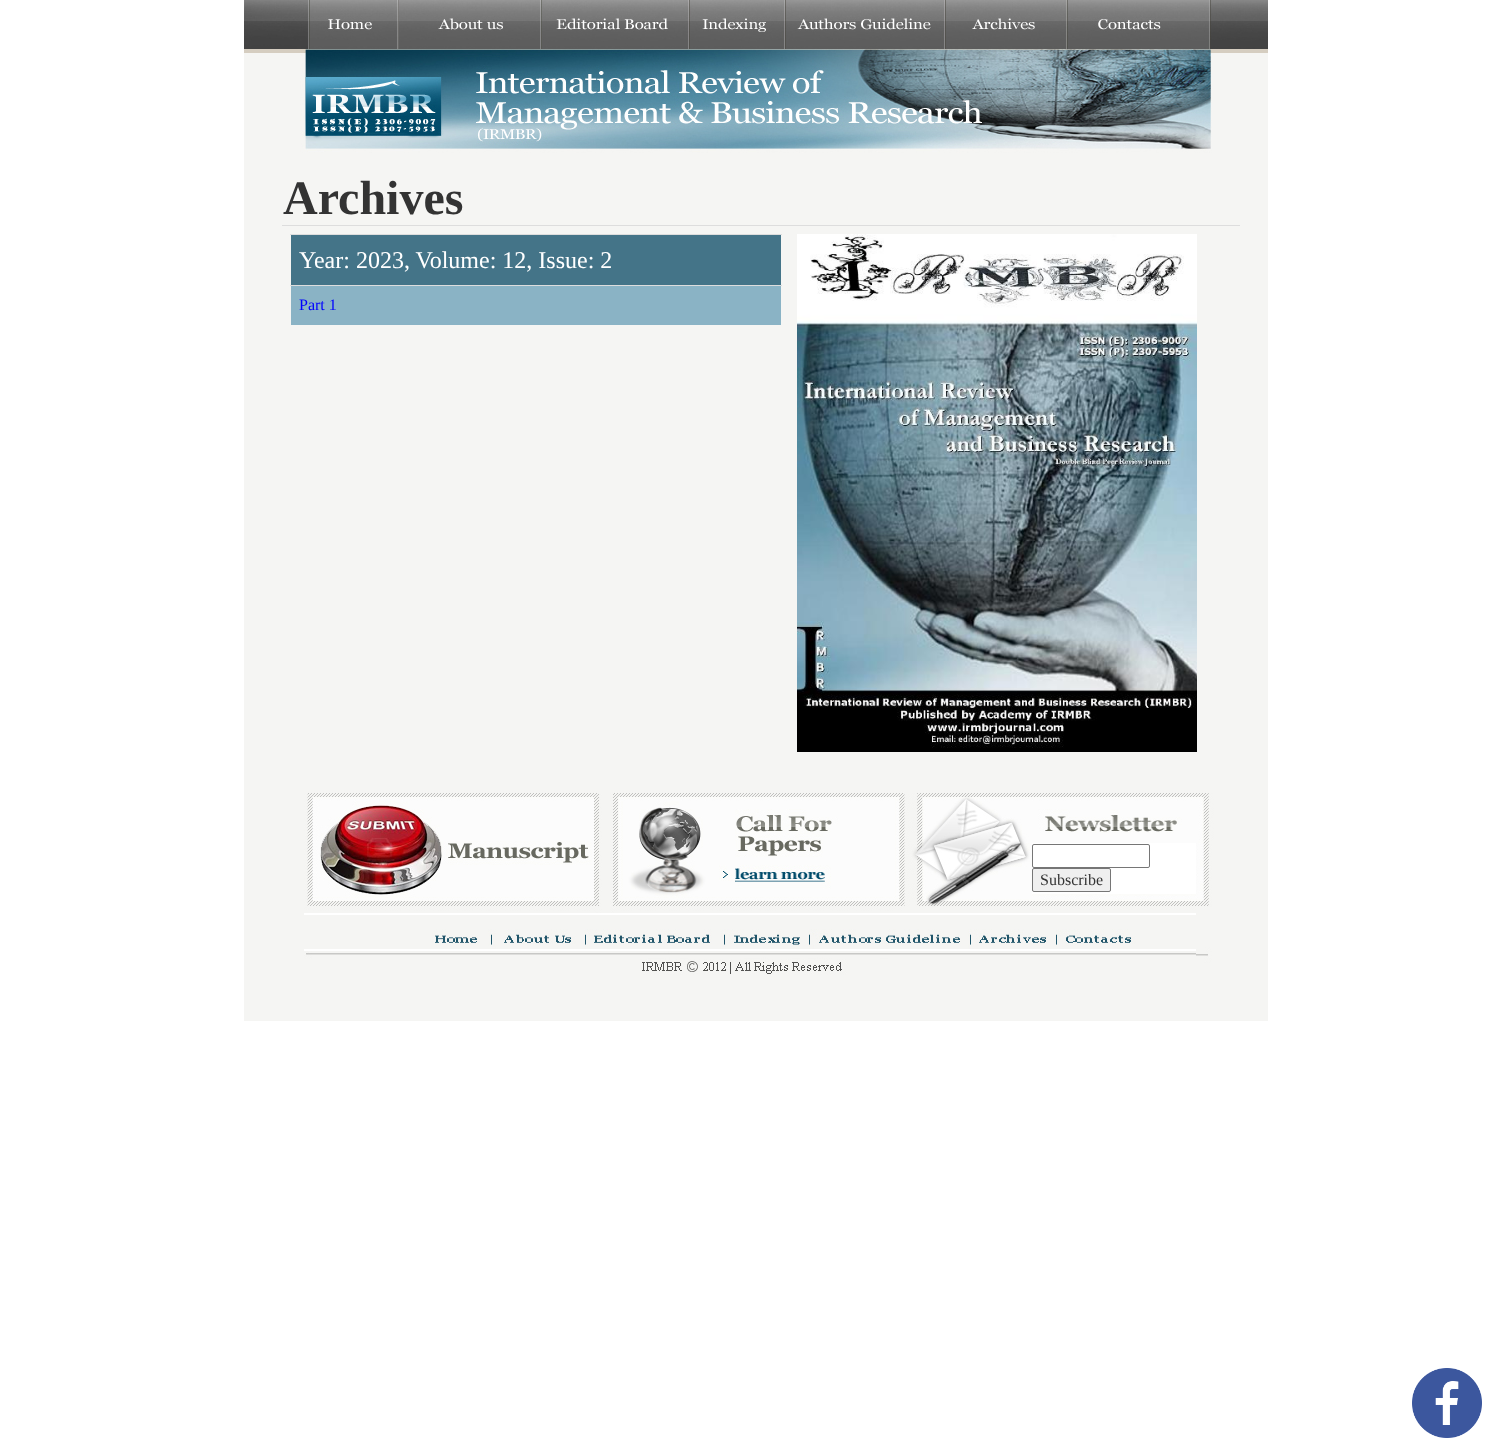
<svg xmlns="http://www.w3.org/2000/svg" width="1512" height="1448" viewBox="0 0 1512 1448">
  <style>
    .t1 { font: bold 48px Liberation Serif; fill: #333; }
    .t2 { font: 24px Liberation Serif; fill: #fff; }
    .t3 { font: 16px Liberation Serif; fill: #00f; }
    .t4 { font: 16px Liberation Serif; fill: #333; }
  </style>
  <rect width="100%" height="100%" fill="#fff"/>
  <image x="244" y="0" width="1024" height="49" href="images/1.png"/>
  <image x="244" y="49" width="1024" height="121" href="images/2.png"/>
  <rect x="244" y="170" width="1024" height="623" fill="#f5f5f3"/>
  <text x="283" y="214" class="t1">Archives</text>
  <rect x="282" y="225" width="958" height="1" fill="#ddd"/>
  <image x="797" y="234" width="400" height="518" href="images/3.png"/>
  <rect x="291" y="235" width="490" height="50" fill="#447488"/>
  <rect x="290" y="234" width="492" height="1" fill="#ddd"/>
  <text x="299" y="268" class="t2">Year: 2023, Volume: 12, Issue: 2</text>
  <rect x="291" y="286" width="490" height="39" fill="#8ab3c5"/>
  <rect x="290" y="285" width="492" height="1" fill="#ddd"/>
  <text x="299" y="310" class="t3">Part 1</text>
  <rect x="244" y="793" width="60" height="228" fill="#f5f5f3"/>
  <image x="304" y="793" width="290" height="110" href="images/4.png"/>
  <image x="594" y="793" width="21" height="120" href="images/5.png"/>
  <image x="615" y="793" width="287" height="110" href="images/6.png"/>
  <image x="902" y="793" width="366" height="50" href="images/7.png"/>
  <image x="902" y="843" width="130" height="70" href="images/8.png"/>
  <rect x="1032.5" y="844.5" width="117" height="23" rx="1.5" fill="none" stroke="#767676"/>
  <rect x="1032.5" y="868.5" width="78" height="23" rx="1.5" fill="#efefef" stroke="#767676"/>
  <text x="1040" y="885" class="t4">Subscribe</text>
  <image x="1196" y="843" width="72" height="178" href="images/9.png"/>
  <image x="304" y="903" width="290" height="10" href="images/10.png"/>
  <image x="615" y="903" width="287" height="10" href="images/11.png"/>
  <image x="1032" y="894" width="164" height="19" href="images/12.png"/>
  <image x="304" y="915" width="892" height="34" href="images/13.png"/>
  <image x="304" y="951" width="892" height="70" href="images/14.png"/>
  <image x="1412" y="1368" width="70" height="70" href="images/15.png"/>
</svg>
